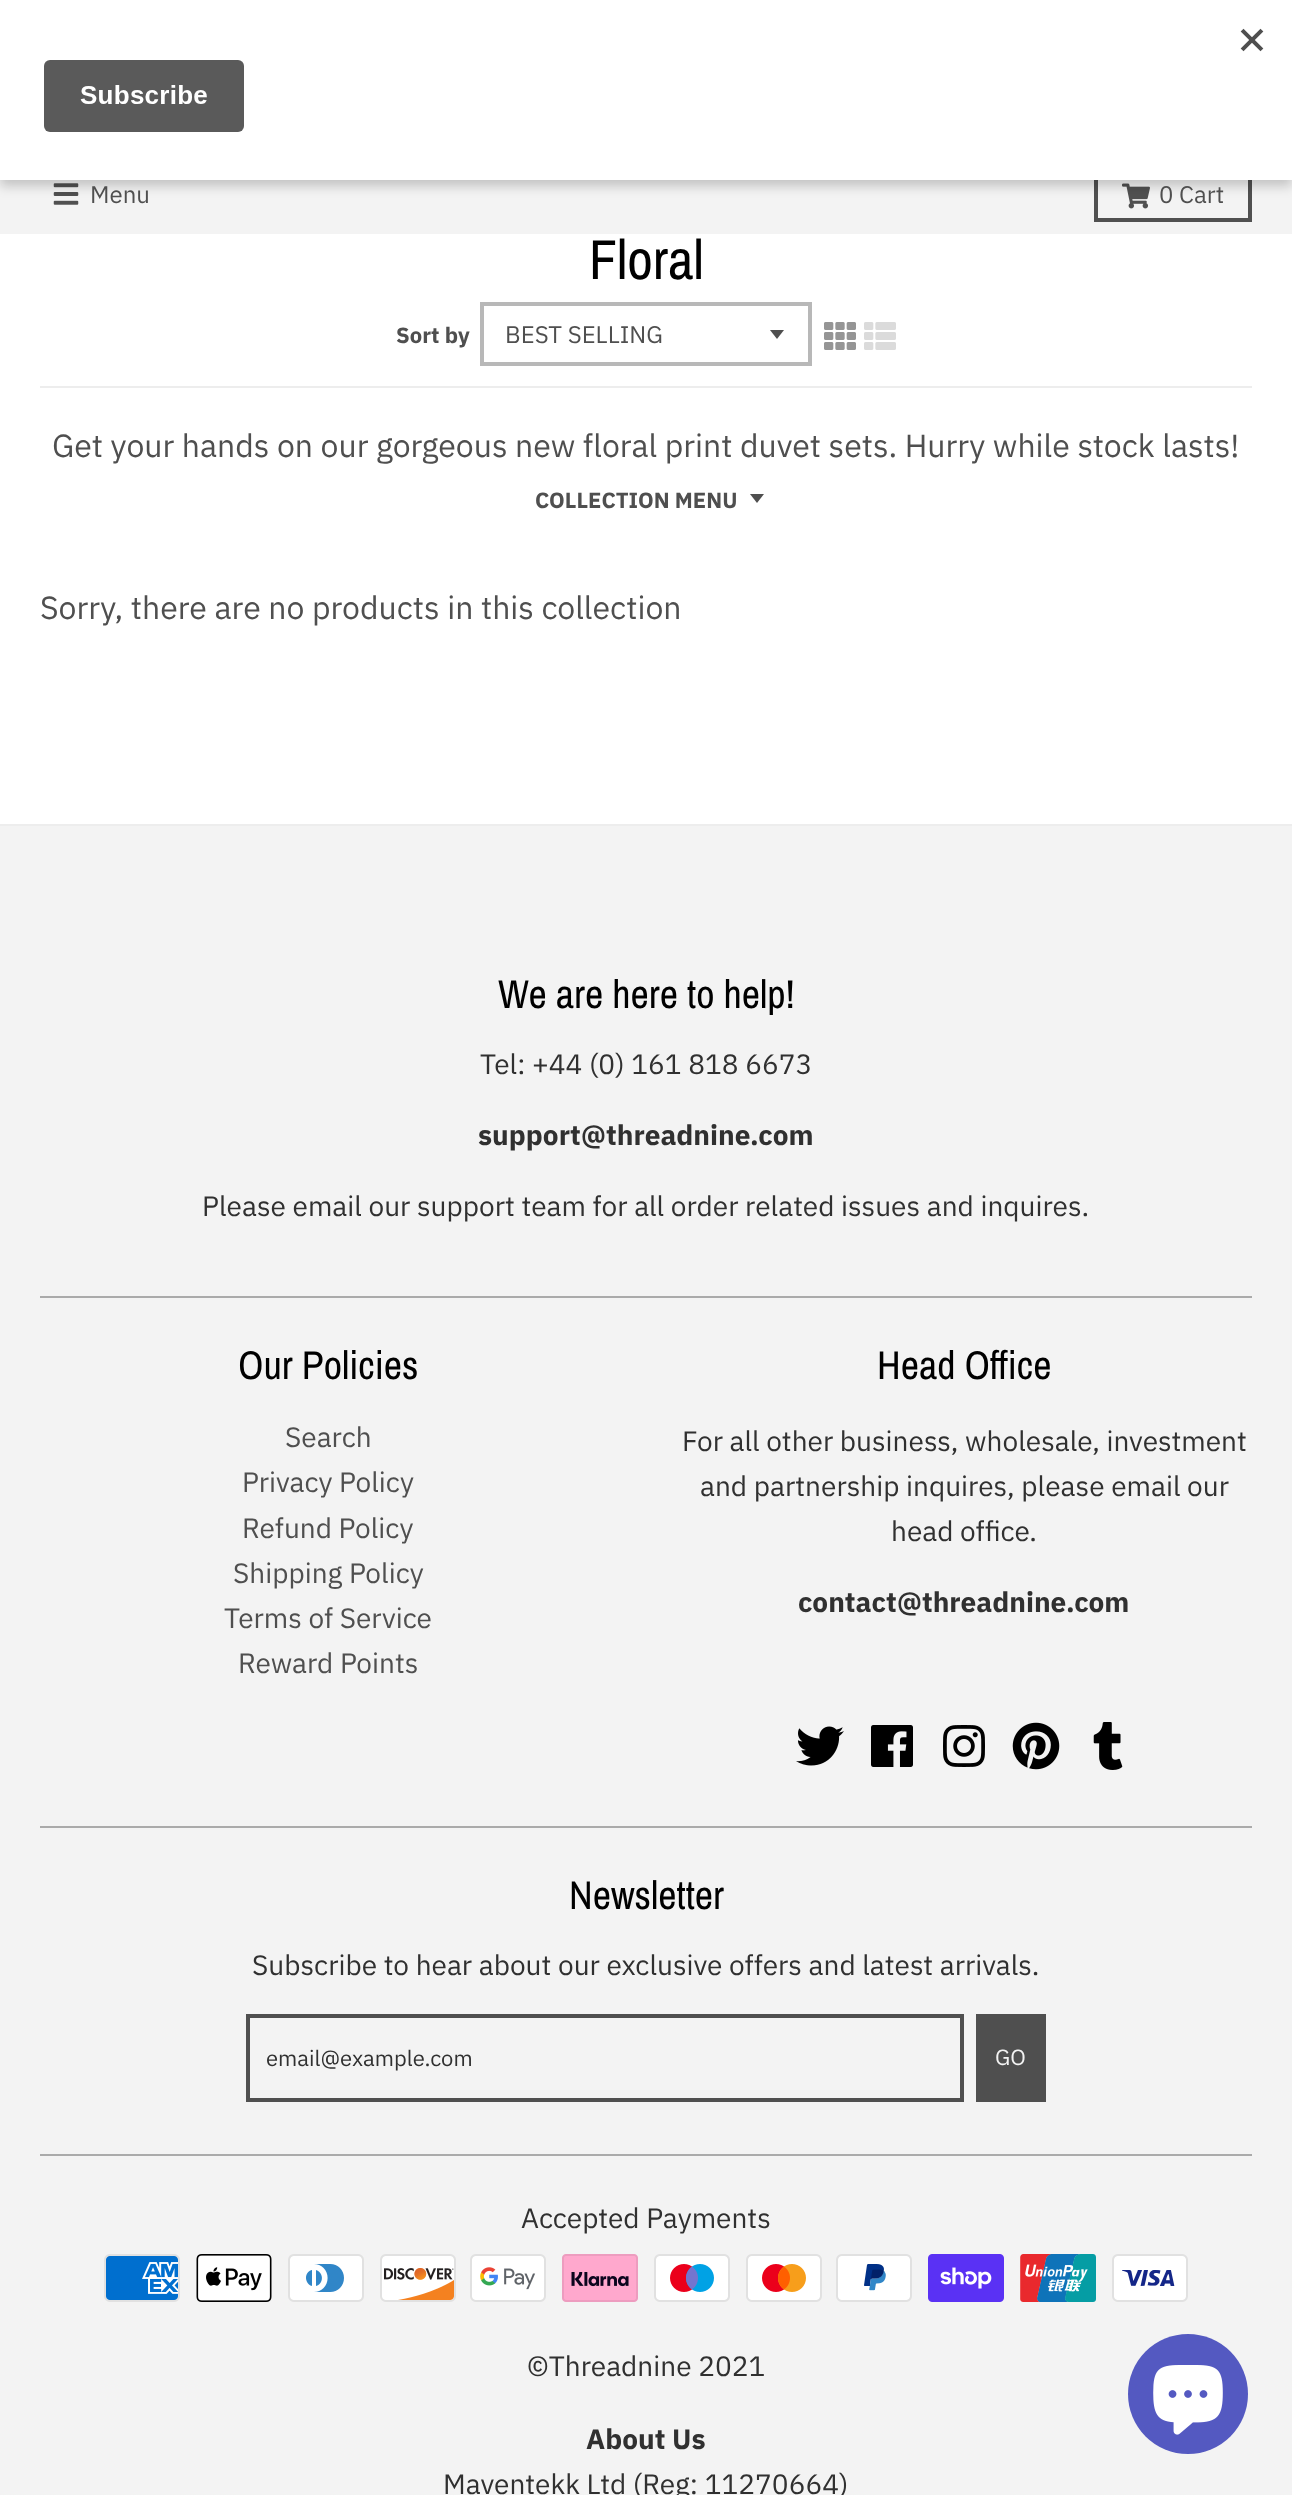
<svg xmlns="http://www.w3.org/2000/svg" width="1292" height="2495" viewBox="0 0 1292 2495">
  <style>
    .t1 { font: 24px IBM Plex Sans; fill: #4f4f4f; }
    .t2 { font: 56px Archivo Narrow; fill: #000; }
    .t3 { font: bold 22px IBM Plex Sans; fill: #4f4f4f; }
    .t4 { font: 32px IBM Plex Sans; fill: #4f4f4f; }
    .t5 { font: 40px Archivo Narrow; fill: #000; }
    .t6 { font: 28px IBM Plex Sans; fill: #303030; }
    .t7 { font: bold 28px IBM Plex Sans; fill: #303030; }
    .t8 { font: 28px IBM Plex Sans; fill: #4f4f4f; }
    .t9 { font: 22px IBM Plex Sans; fill: #303030; }
    .t10 { font: 22px IBM Plex Sans; fill: #f3f3f3; }
  </style>
  <rect width="100%" height="100%" fill="#fff"/>
  <rect x="0" y="180" width="1292" height="54" fill="#f3f3f3"/>
  <image x="53" y="183" width="26" height="22" href="images/2.png"/>
  <rect x="1096" y="170" width="154" height="50" fill="none" stroke="#505050" stroke-width="4"/>
  <image x="1122" y="183" width="28" height="26" href="images/3.png"/>
  <rect x="0" y="6" width="1292" height="180" fill="#00000033" filter="blur(6px)"/>
  <rect x="0" y="0" width="1292" height="180" fill="#fff"/>
  <image x="44" y="28" width="1220" height="104" href="images/1.png"/>
  <text x="90" y="203" class="t1">Menu</text>
  <text x="1159" y="203" class="t1">0 Cart</text>
  <rect x="0" y="824" width="1292" height="2" fill="#ededed"/>
  <rect x="40" y="386" width="1212" height="2" fill="#ededed"/>
  <text x="589" y="279" class="t2">Floral</text>
  <text x="396" y="343" class="t3">Sort by</text>
  <path d="M770 330L777 339L784 330Z" fill="#4f4f4f"/>
  <rect x="482" y="304" width="328" height="60" fill="none" stroke="#b8b8b8" stroke-width="4"/>
  <text x="505" y="343" class="t1">BEST SELLING</text>
  <image x="824" y="322" width="32" height="28" href="images/4.png"/>
  <image x="864" y="322" width="32" height="28" href="images/5.png"/>
  <text x="52" y="457" class="t4">Get your hands on our gorgeous new floral print duvet sets. Hurry while stock lasts!</text>
  <text x="535" y="508" class="t3">COLLECTION MENU</text>
  <path d="M750 494L757 503L764 494Z" fill="#4f4f4f"/>
  <text x="40" y="619" class="t4">Sorry, there are no products in this collection</text>
  <rect x="0" y="826" width="1292" height="1669" fill="#f3f3f3"/>
  <text x="498" y="1008" class="t5">We are here to help!</text>
  <text x="480" y="1074" class="t6">Tel: +44 (0) 161 818 6673</text>
  <rect x="40" y="1296" width="1212" height="2" fill="#aaa"/>
  <text x="478" y="1145" class="t7">support@threadnine.com</text>
  <text x="202" y="1216" class="t6">Please email our support team for all order related issues and inquires.</text>
  <text x="238" y="1379" class="t5">Our Policies</text>
  <text x="285" y="1447" class="t8">Search</text>
  <text x="242" y="1492" class="t8">Privacy Policy</text>
  <text x="242" y="1538" class="t8">Refund Policy</text>
  <text x="233" y="1583" class="t8">Shipping Policy</text>
  <text x="224" y="1628" class="t8">Terms of Service</text>
  <text x="238" y="1673" class="t8">Reward Points</text>
  <text x="877" y="1379" class="t5">Head Office</text>
  <text x="682" y="1451" class="t6">For all other business, wholesale, investment</text>
  <text x="700" y="1496" class="t6">and partnership inquires, please email our</text>
  <text x="891" y="1541" class="t6">head office.</text>
  <text x="798" y="1612" class="t7">contact@threadnine.com</text>
  <image x="796" y="1726" width="48" height="40" href="images/6.png"/>
  <image x="871" y="1725" width="42" height="42" href="images/7.png"/>
  <image x="943" y="1725" width="42" height="42" href="images/8.png"/>
  <image x="1012" y="1722" width="48" height="48" href="images/9.png"/>
  <image x="1093" y="1722" width="30" height="48" href="images/10.png"/>
  <rect x="40" y="1826" width="1212" height="2" fill="#aaa"/>
  <text x="569" y="1909" class="t5">Newsletter</text>
  <text x="252" y="1975" class="t6">Subscribe to hear about our exclusive offers and latest arrivals.</text>
  <rect x="248" y="2016" width="714" height="84" fill="none" stroke="#4f4f4f" stroke-width="4"/>
  <text x="266" y="2066" class="t9">email@example.com</text>
  <rect x="976" y="2014" width="70" height="88" fill="#4f4f4f"/>
  <text x="995" y="2065" class="t10">GO</text>
  <rect x="40" y="2154" width="1212" height="2" fill="#aaa"/>
  <text x="521" y="2228" class="t6">Accepted Payments</text>
  <image x="104" y="2254" width="76" height="48" href="images/11.png"/>
  <image x="196" y="2254" width="76" height="48" href="images/12.png"/>
  <image x="288" y="2254" width="76" height="48" href="images/13.png"/>
  <image x="380" y="2254" width="76" height="48" href="images/14.png"/>
  <image x="470" y="2254" width="76" height="48" href="images/15.png"/>
  <image x="562" y="2254" width="76" height="48" href="images/16.png"/>
  <image x="654" y="2254" width="76" height="48" href="images/17.png"/>
  <image x="746" y="2254" width="76" height="48" href="images/18.png"/>
  <image x="836" y="2254" width="76" height="48" href="images/19.png"/>
  <image x="928" y="2254" width="76" height="48" href="images/20.png"/>
  <image x="1020" y="2254" width="76" height="48" href="images/21.png"/>
  <image x="1112" y="2254" width="76" height="48" href="images/22.png"/>
  <text x="527" y="2376" class="t6">©Threadnine 2021</text>
  <text x="586" y="2449" class="t7">About Us</text>
  <text x="443" y="2494" class="t6">Maventekk Ltd (Reg: 11270664)</text>
  <circle cx="1188" cy="2394" r="60" fill="#5459c1"/>
  <image x="1153" y="2365" width="70" height="70" href="images/23.png"/>
</svg>
